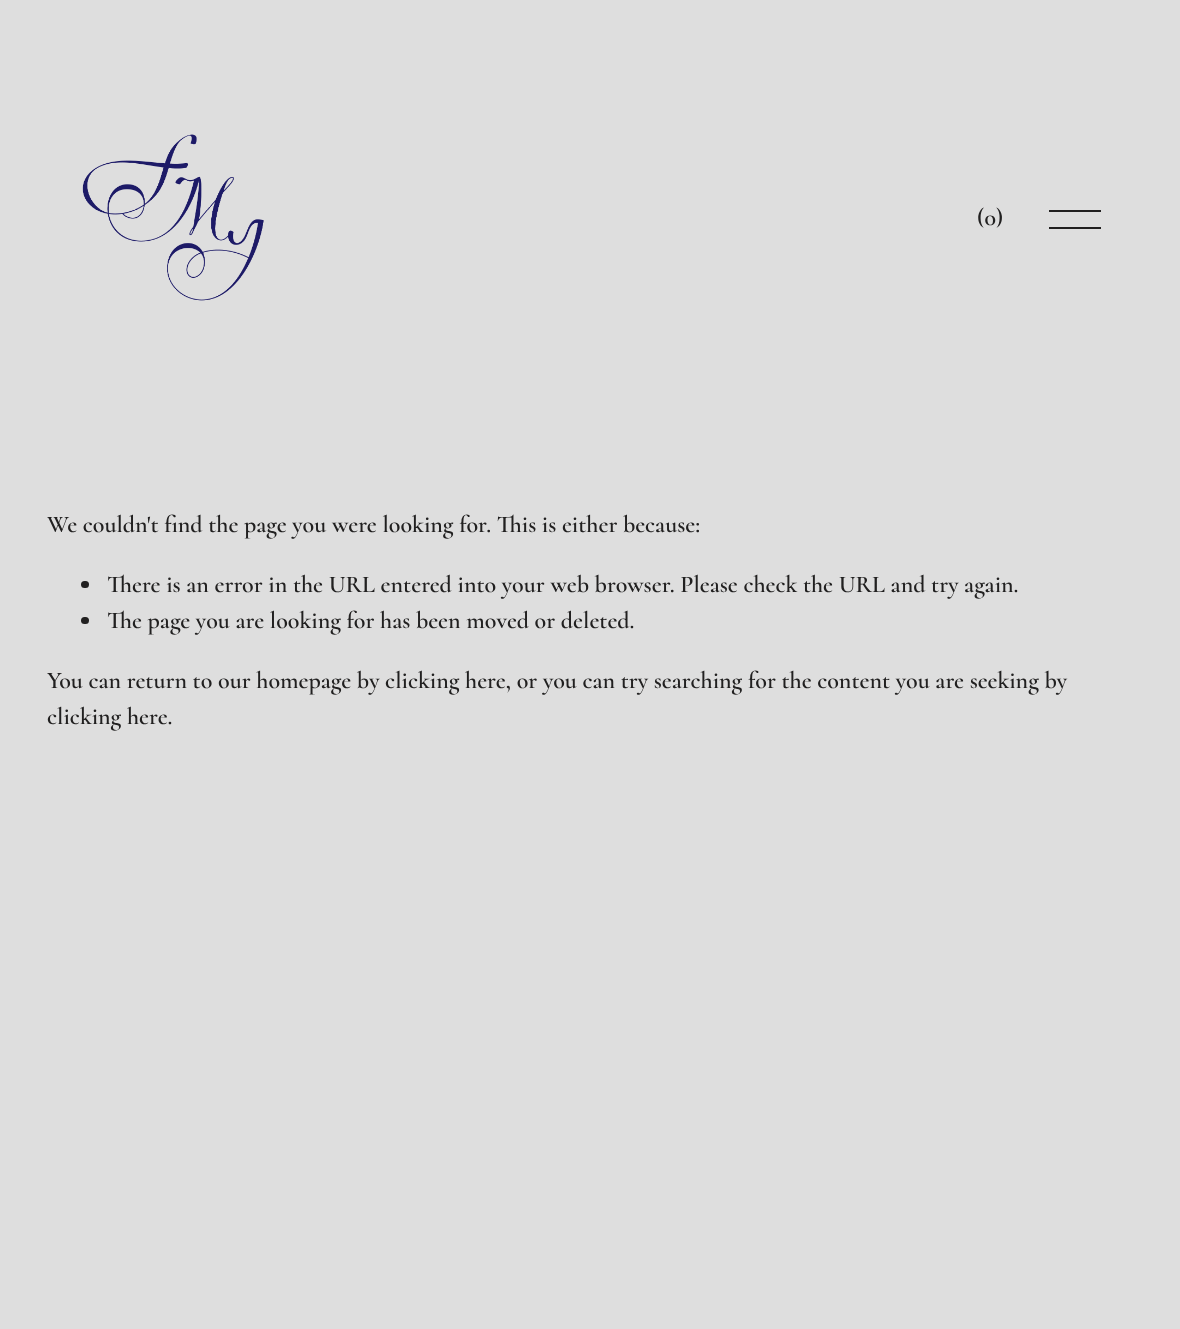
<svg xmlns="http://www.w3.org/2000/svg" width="1180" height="1329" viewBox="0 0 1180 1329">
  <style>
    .t1 { font: 600 24px Cormorant; fill: #212020; }
  </style>
  <rect width="100%" height="100%" fill="#dedede"/>
  <image x="82" y="134" width="182" height="167" href="images/1.png"/>
  <text x="977" y="225" class="t1">(0)</text>
  <rect x="1049" y="210" width="52" height="2" fill="#212020"/>
  <rect x="1049" y="227" width="52" height="2" fill="#212020"/>
  <text x="47" y="532" class="t1">We couldn't find the page you were looking for. This is either because:</text>
  <rect x="81" y="581" width="8" height="7" rx="3.5" fill="#212020"/>
  <text x="107" y="592" class="t1">There is an error in the URL entered into your web browser. Please check the URL and try again.</text>
  <rect x="81" y="617" width="8" height="7" rx="3.5" fill="#212020"/>
  <text x="107" y="628" class="t1">The page you are looking for has been moved or deleted.</text>
  <text x="47" y="688" class="t1">You can return to our homepage by clicking here, or you can try searching for the content you are seeking by</text>
  <text x="47" y="724" class="t1">clicking here.</text>
</svg>
